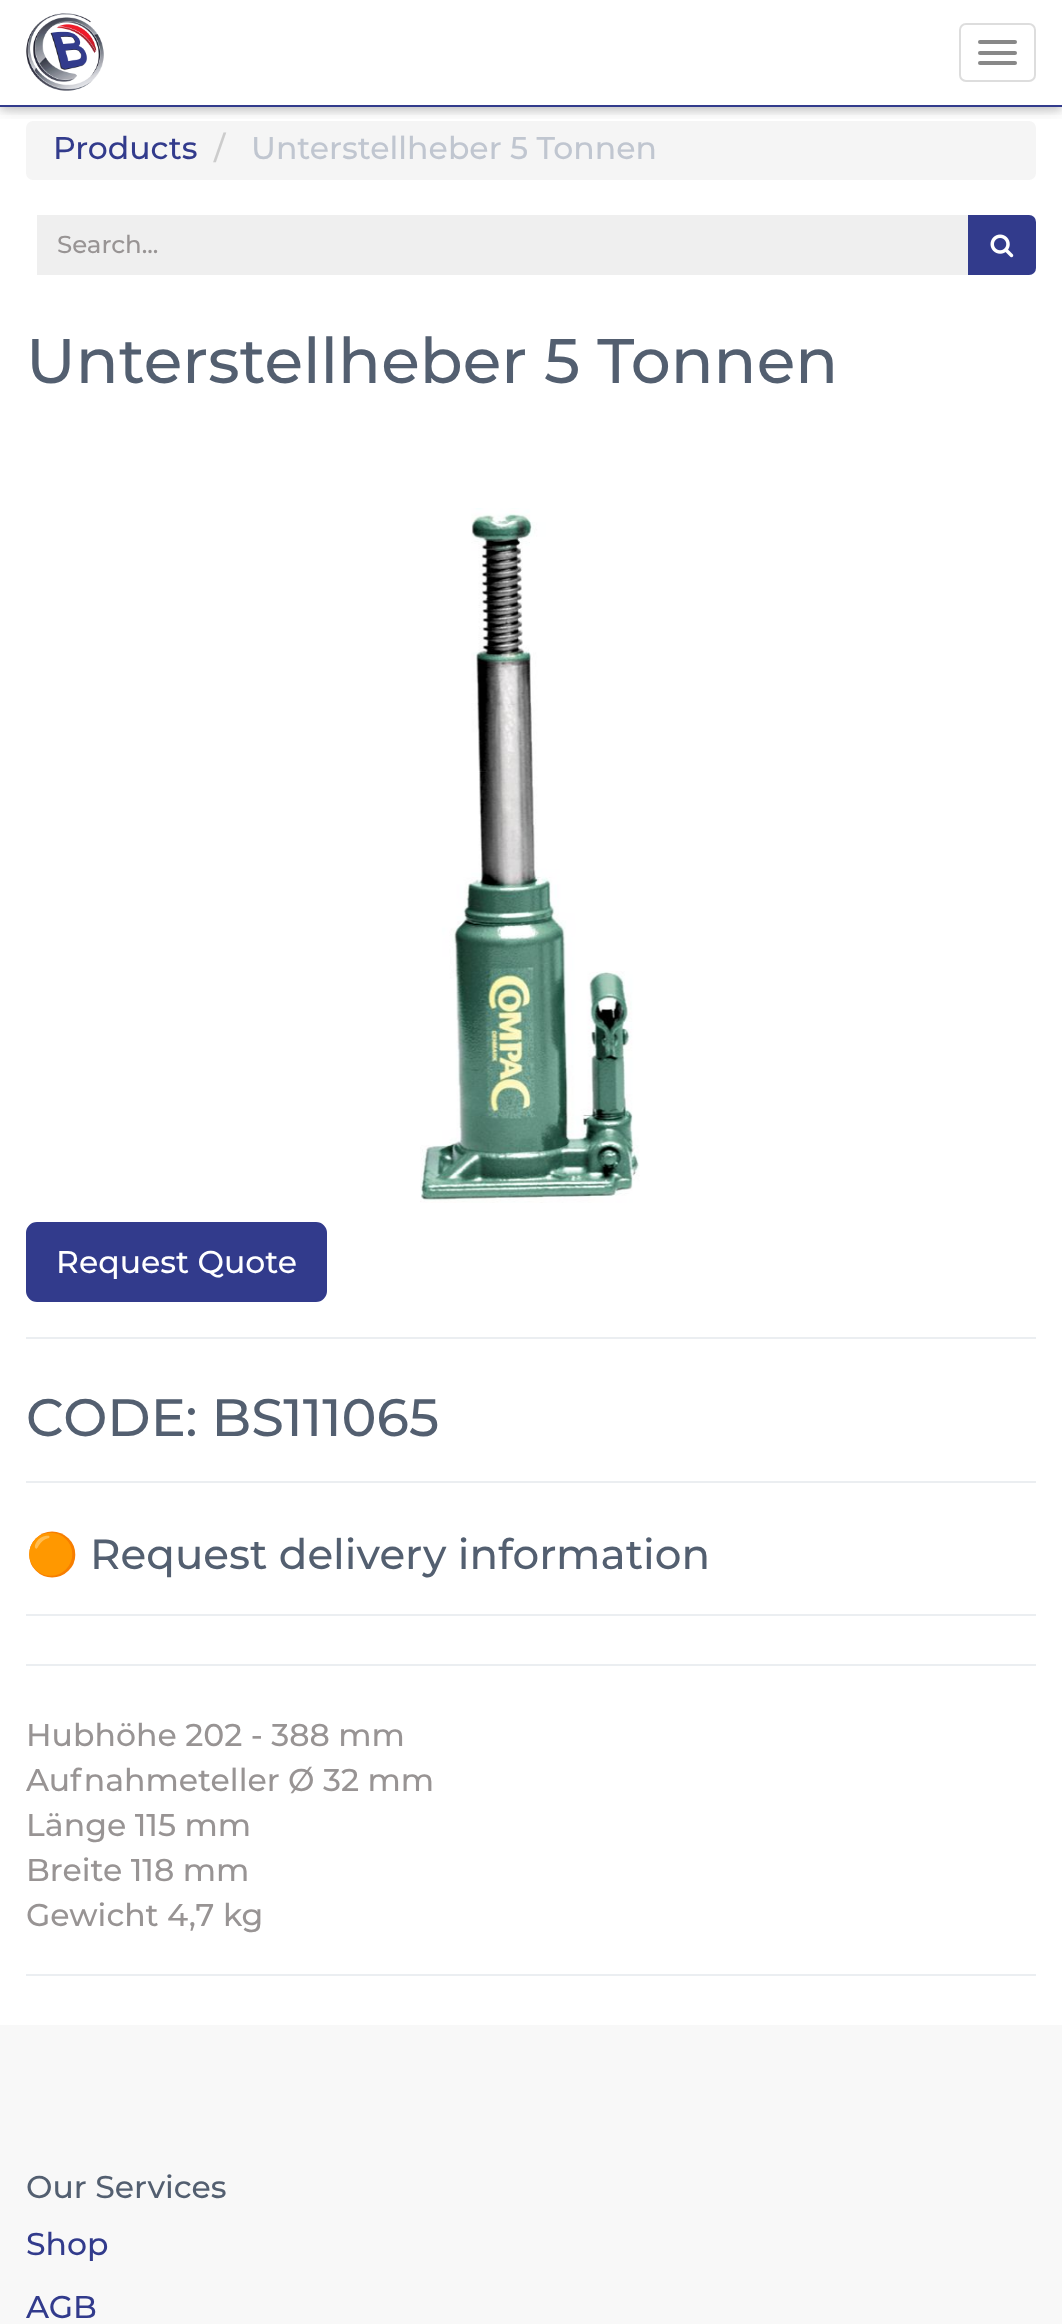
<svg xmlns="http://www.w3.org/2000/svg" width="1062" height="2324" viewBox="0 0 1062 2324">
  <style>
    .t1 { font: 500 31.5px Montserrat; fill: #323b8c; }
    .t2 { font: 500 31.5px Montserrat; fill: #ccc; }
    .t3 { font: 500 31.5px Montserrat; fill: #c0c6d0; }
    .t4 { font: 500 24.5px Montserrat; fill: #989494; }
    .t5 { font: 500 63px Montserrat; fill: #535f70; }
    .t6 { font: 500 31.5px Montserrat; fill: #fff; }
    .t7 { font: 500 52.5px Montserrat; fill: #535f70; }
    .t8 { font: 42px Noto Color Emoji; fill: #535f70; }
    .t9 { font: 500 42px Montserrat; fill: #535f70; }
    .t10 { font: 500 31.5px Montserrat; fill: #989494; }
    .t11 { font: 500 31.5px Montserrat; fill: #535f70; }
  </style>
  <defs>
    <clipPath id="clip1"><rect x="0" y="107" width="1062" height="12"/></clipPath>
    <clipPath id="clip2"><rect x="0" y="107" width="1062" height="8"/></clipPath>
  </defs>
  <rect width="100%" height="100%" fill="#fff"/>
  <rect x="26" y="121" width="1010" height="59" rx="7" fill="#f5f5f5"/>
  <g clip-path="url(#clip1)">
    <rect x="0" y="4" width="1062" height="106" fill="#0000001f" filter="blur(9px)"/>
  </g>
  <g clip-path="url(#clip2)">
    <rect x="0" y="4" width="1062" height="106" fill="#00000029" filter="blur(4.5px)"/>
  </g>
  <rect x="0" y="105" width="1062" height="2" fill="#323b8c"/>
  <image x="26" y="13" width="78" height="78" href="images/1.png"/>
  <rect x="960" y="24" width="75" height="57" rx="6" fill="none" stroke="#ddd" stroke-width="2"/>
  <rect x="978" y="40" width="39" height="4" rx="2" fill="#888"/>
  <rect x="978" y="51" width="39" height="4" rx="2" fill="#888"/>
  <rect x="978" y="61" width="39" height="4" rx="2" fill="#888"/>
  <text x="53" y="159" class="t1">Products</text>
  <text x="214" y="159" class="t2">/</text>
  <text x="251" y="159" class="t3">Unterstellheber 5 Tonnen</text>
  <rect x="37" y="215" width="994" height="60" fill="#efefef"/>
  <text x="57" y="253" class="t4">Search...</text>
  <path d="M969 216H1029C1032.5 216 1035 218.5 1035 222V268C1035 271.5 1032.5 274 1029 274H969Z" fill="#323b8c" stroke="#323b8c" stroke-width="2"/>
  <image x="990" y="234" width="24" height="24" href="images/2.png"/>
  <text x="26" y="383" class="t5">Unterstellheber 5 Tonnen</text>
  <image x="420" y="508" width="220" height="695" href="images/3.png"/>
  <rect x="27" y="1223" width="299" height="78" rx="10" fill="#323b8c" stroke="#323b8c" stroke-width="2"/>
  <text x="56" y="1273" class="t6">Request Quote</text>
  <rect x="26" y="1337" width="1010" height="2" fill="#ebeef1"/>
  <text x="26" y="1436" class="t7">CODE: BS111065</text>
  <rect x="26" y="1481" width="1010" height="2" fill="#ebeef1"/>
  <text x="26" y="1569" class="t8">🟠</text>
  <text x="90" y="1569" class="t9">Request delivery information</text>
  <rect x="26" y="1614" width="1010" height="2" fill="#ebeef1"/>
  <rect x="26" y="1664" width="1010" height="2" fill="#ebeef1"/>
  <text x="26" y="1746" class="t10">Hubhöhe 202 - 388 mm</text>
  <text x="26" y="1791" class="t10">Aufnahmeteller Ø 32 mm</text>
  <text x="26" y="1836" class="t10">Länge 115 mm</text>
  <text x="26" y="1881" class="t10">Breite 118 mm</text>
  <text x="26" y="1926" class="t10">Gewicht 4,7 kg</text>
  <rect x="26" y="1974" width="1010" height="2" fill="#ebeef1"/>
  <rect x="0" y="2025" width="1062" height="299" fill="#f8f8f8"/>
  <text x="26" y="2198" class="t11">Our Services</text>
  <text x="26" y="2255" class="t1">Shop</text>
  <text x="26" y="2318" class="t1">AGB</text>
</svg>
